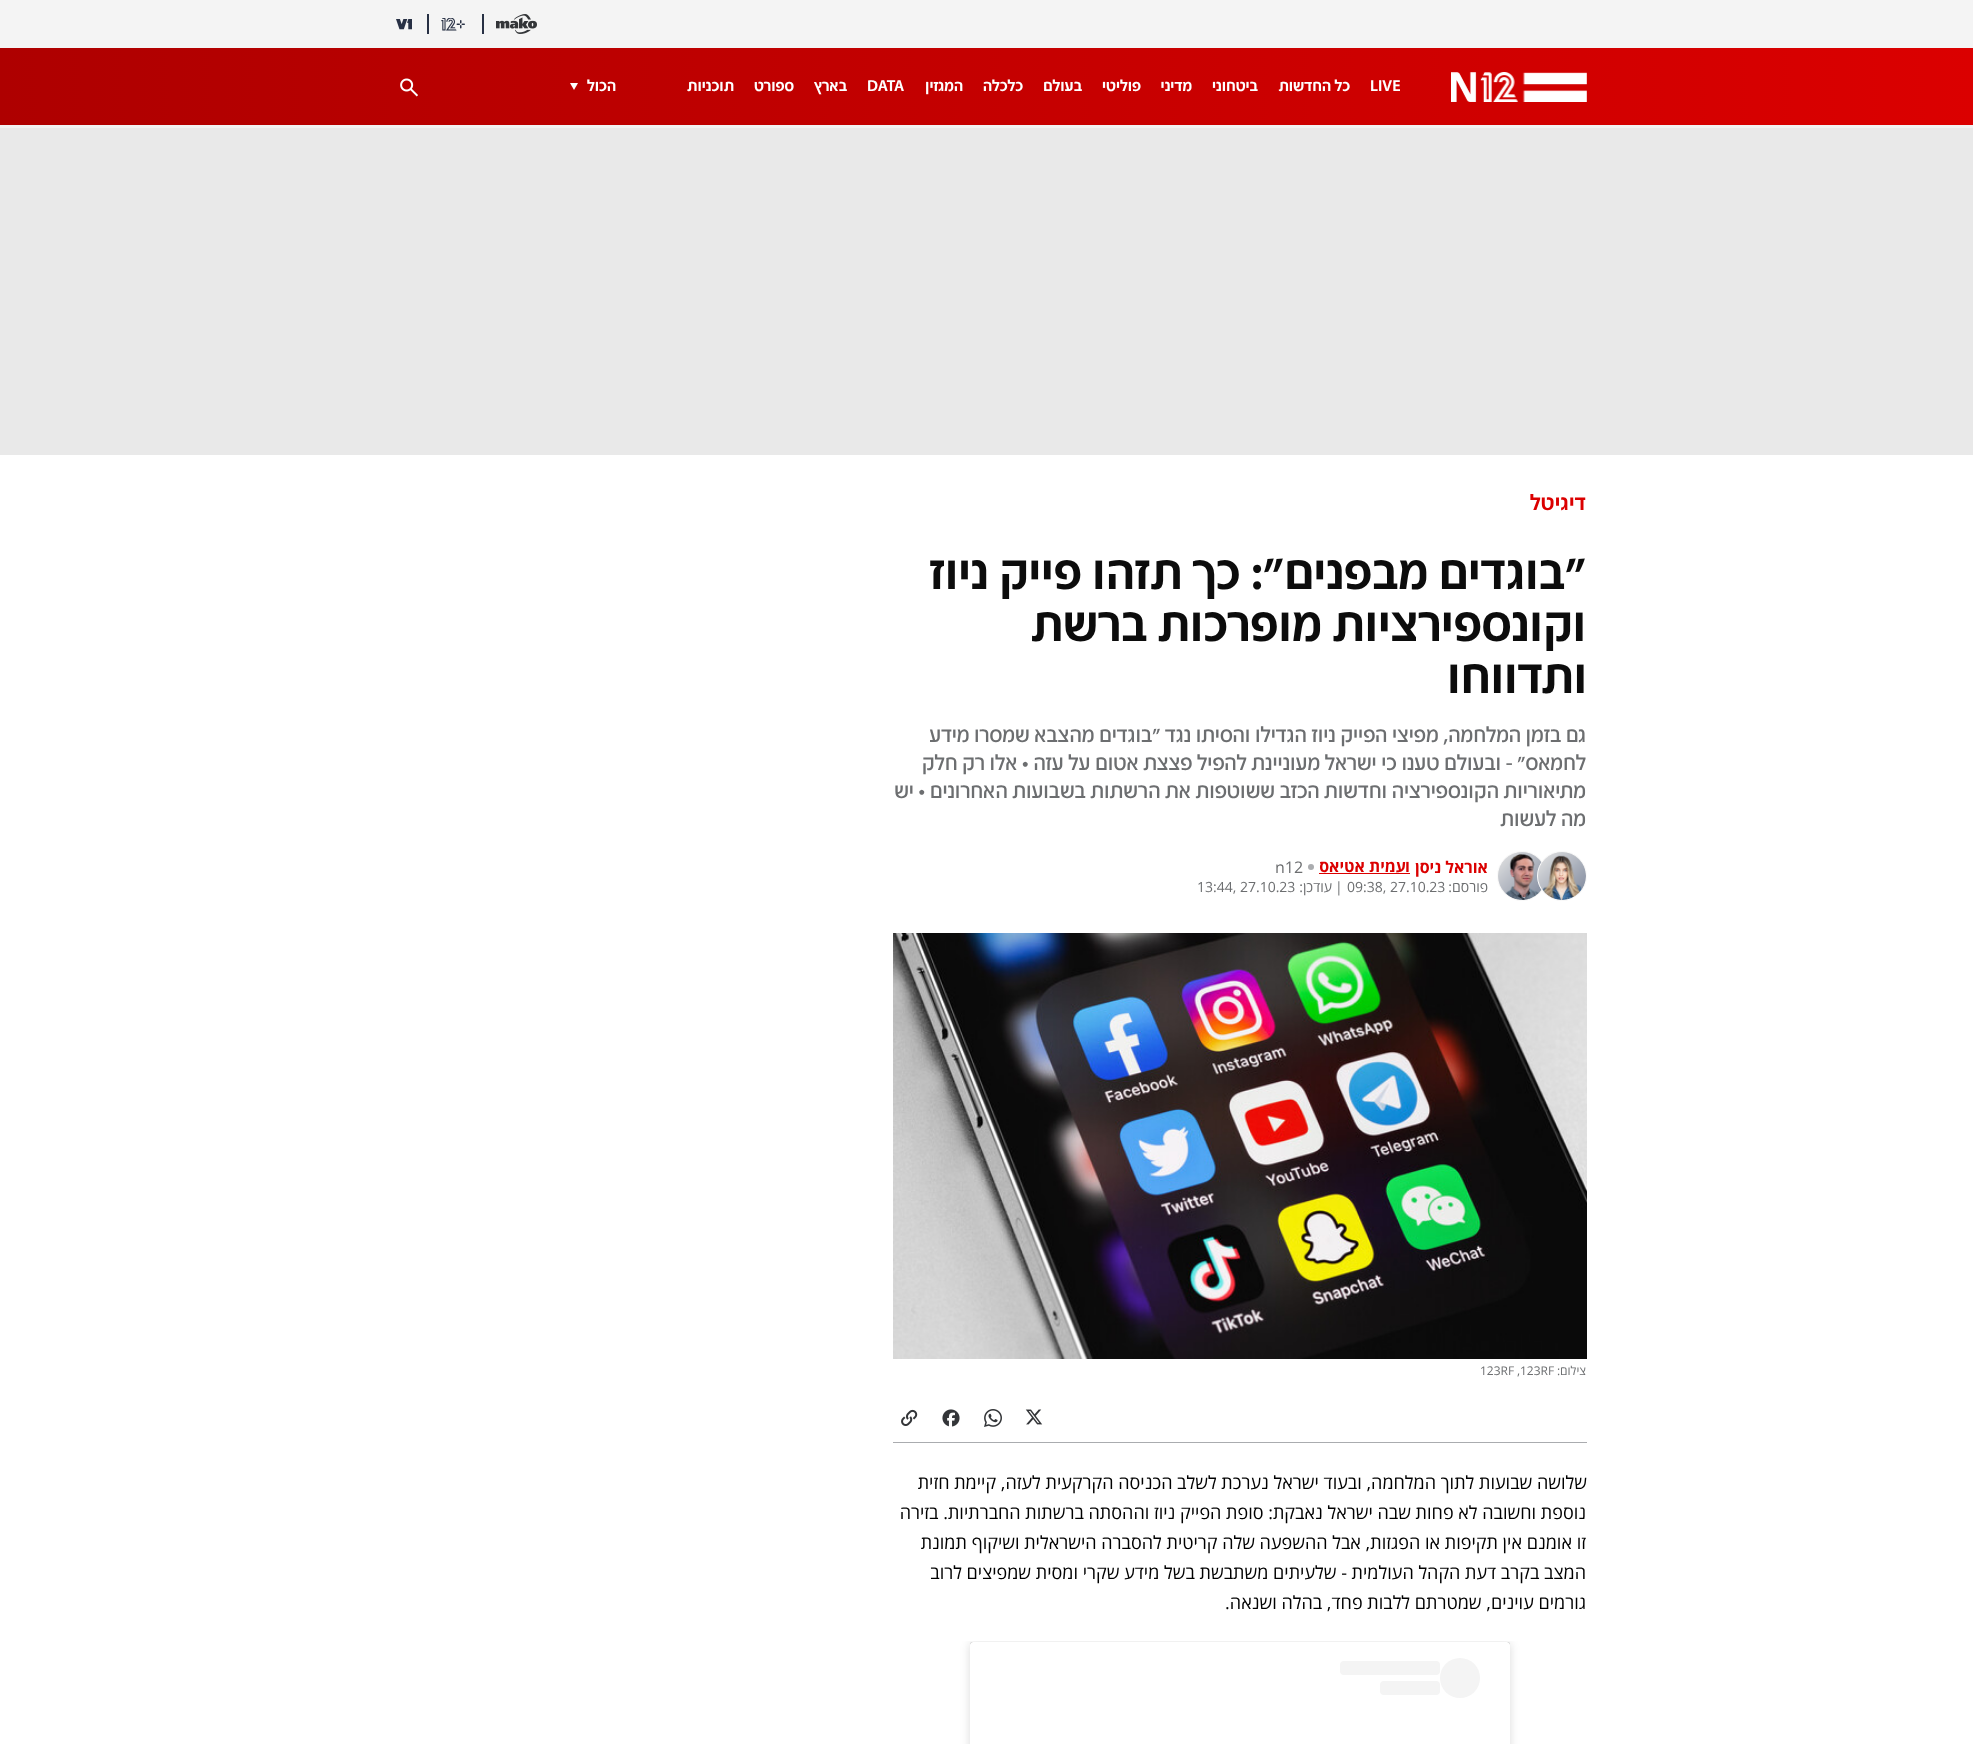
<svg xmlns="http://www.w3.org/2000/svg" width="1973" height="1744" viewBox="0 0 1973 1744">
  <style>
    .t1 { font: 500 16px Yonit; fill: #fff; }
    .t2 { font: 500 16px Yonit; direction: rtl; fill: #fff; }
    .t3 { font: 500 22px Yonit; letter-spacing: 0.25px; direction: rtl; fill: #db0000; }
    .t4 { font: 500 50px Yonit; direction: rtl; fill: #0c0c0c; }
    .t5 { font: 22px Yonit; direction: rtl; fill: #6c6e70; }
    .t6 { font: bold 16px Open Sans; direction: rtl; fill: #db0000; }
    .t7 { font: 16px Open Sans; fill: #6c6e70; }
    .t8 { font: 14px Open Sans; direction: rtl; fill: #6c6e70; }
    .t9 { font: 14px Open Sans; fill: #6c6e70; }
    .t10 { font: 12px Open Sans; direction: rtl; fill: #6c6e70; }
    .t11 { font: 12px Open Sans; fill: #6c6e70; }
    .t12 { font: 18px Open Sans; direction: rtl; fill: #000; }
  </style>
  <defs>
    <linearGradient id="g1" gradientUnits="userSpaceOnUse" x1="1973" y1="52" x2="-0.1" y2="121"><stop offset="0" stop-color="#db0000"/><stop offset="1" stop-color="#ae0000"/></linearGradient>
    <clipPath id="clip1"><rect x="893" y="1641" width="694" height="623"/></clipPath>
  </defs>
  <rect width="100%" height="100%" fill="#e9e9e9"/>
  <rect x="0" y="0" width="1973" height="48" fill="#f4f4f4"/>
  <image x="496" y="14" width="41" height="20" href="images/1.png"/>
  <rect x="482" y="14" width="2" height="20" fill="#273044"/>
  <image x="441" y="18" width="24" height="13" href="images/2.png"/>
  <rect x="427" y="14" width="2" height="20" fill="#273044"/>
  <image x="396" y="19" width="16" height="11" href="images/3.png"/>
  <rect x="0" y="48" width="1973" height="77" fill="url(#g1)"/>
  <image x="1451" y="72" width="136" height="30" href="images/4.png"/>
  <text x="1370" y="91" class="t1">LIVE</text>
  <text x="1350" y="91" class="t2">כל החדשות</text>
  <text x="1258" y="91" class="t2">ביטחוני</text>
  <text x="1192" y="91" class="t2">מדיני</text>
  <text x="1141" y="91" class="t2">פוליטי</text>
  <text x="1082" y="91" class="t2">בעולם</text>
  <text x="1023" y="91" class="t2">כלכלה</text>
  <text x="963" y="91" class="t2">המגזין</text>
  <text x="867" y="91" class="t1">DATA</text>
  <text x="847" y="91" class="t2">בארץ</text>
  <text x="794" y="91" class="t2">ספורט</text>
  <text x="734" y="91" class="t2">תוכניות</text>
  <text x="616" y="91" class="t2">הכול</text>
  <path d="M570 83H578L574 90Z" fill="#fff"/>
  <image x="400" y="78" width="18" height="19" href="images/5.png"/>
  <rect x="0" y="125" width="1973" height="3" fill="#f2f2f2"/>
  <rect x="0" y="455" width="1973" height="1289" fill="#fff"/>
  <text x="1586" y="510" class="t3">דיגיטל</text>
  <text x="1586" y="589" class="t4">"בוגדים מבפנים": כך תזהו פייק ניוז</text>
  <text x="1586" y="641" class="t4">וקונספירציות מופרכות ברשת</text>
  <text x="1587" y="693" class="t4">ותדווחו</text>
  <text x="1586" y="742" class="t5">גם בזמן המלחמה, מפיצי הפייק ניוז הגדילו והסיתו נגד "בוגדים מהצבא שמסרו מידע</text>
  <text x="1586" y="770" class="t5">לחמאס" - ובעולם טענו כי ישראל מעוניינת להפיל פצצת אטום על עזה • אלו רק חלק</text>
  <text x="1586" y="798" class="t5">מתיאוריות הקונספירציה וחדשות הכזב ששוטפות את הרשתות בשבועות האחרונים • יש</text>
  <text x="1586" y="826" class="t5">מה לעשות</text>
  <circle cx="1522" cy="876" r="24.5" fill="#e0e0e0" stroke="#fafafa"/>
  <image x="1498" y="852" width="44" height="48" href="images/7.png"/>
  <circle cx="1562" cy="876" r="24.5" fill="#e0e0e0" stroke="#fafafa"/>
  <image x="1538" y="852" width="48" height="48" href="images/6.png"/>
  <text x="1488" y="873" class="t6">אוראל ניסן</text>
  <text x="1410" y="872" class="t6">ו</text>
  <text x="1406" y="872" class="t6">עמית אטיאס</text>
  <rect x="1319" y="873" width="91" height="1" fill="#db0000"/>
  <circle cx="1311" cy="867" r="3" fill="#aaacaf"/>
  <text x="1275" y="873" class="t7">n12</text>
  <text x="1488" y="892" class="t8">פורסם:</text>
  <text x="1347" y="892" class="t9">09:38, 27.10.23</text>
  <text x="1335" y="892" class="t9">|</text>
  <text x="1332" y="892" class="t8">עודכן:</text>
  <text x="1197" y="892" class="t9">13:44, 27.10.23</text>
  <image x="893" y="933" width="694" height="426" href="images/8.png"/>
  <text x="1586" y="1375" class="t10">צילום:</text>
  <text x="1520" y="1375" class="t11">123RF</text>
  <text x="1520" y="1375" class="t10">,</text>
  <text x="1480" y="1375" class="t11">123RF</text>
  <rect x="893" y="1442" width="694" height="1" fill="#aaacaf"/>
  <image x="1025" y="1409" width="18" height="16" href="images/9.png"/>
  <image x="984" y="1409" width="18" height="18" href="images/10.png"/>
  <image x="942" y="1409" width="18" height="18" href="images/11.png"/>
  <image x="901" y="1409" width="17" height="17" href="images/12.png"/>
  <text x="1587" y="1489" class="t12">שלושה שבועות לתוך המלחמה, ובעוד ישראל נערכת לשלב הכניסה הקרקעית לעזה, קיימת חזית</text>
  <text x="1586" y="1519" class="t12">נוספת וחשובה לא פחות שבה ישראל נאבקת: סופת הפייק ניוז וההסתה ברשתות החברתיות. בזירה</text>
  <text x="1586" y="1549" class="t12">זו אומנם אין תקיפות או הפגזות, אבל ההשפעה שלה קריטית להסברה הישראלית ושיקוף תמונת</text>
  <text x="1586" y="1579" class="t12">המצב בקרב דעת הקהל העולמית - שלעיתים משתבשת בשל מידע שקרי ומסית שמפיצים לרוב</text>
  <text x="1586" y="1609" class="t12">גורמים עוינים, שמטרתם ללבות פחד, בהלה ושנאה.</text>
  <g clip-path="url(#clip1)">
    <rect x="970" y="1643" width="540" height="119" rx="3" fill="#00000026" filter="blur(5px)"/>
  </g>
  <rect x="970" y="1642" width="540" height="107" rx="3" fill="#00000080" filter="blur(0.5px)"/>
  <rect x="970" y="1642" width="540" height="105" rx="3" fill="#fff"/>
  <circle cx="1460" cy="1678" r="20" fill="#f4f4f4"/>
  <rect x="1340" y="1661" width="100" height="14" rx="4" fill="#f4f4f4"/>
  <rect x="1380" y="1681" width="60" height="14" rx="4" fill="#f4f4f4"/>
</svg>
